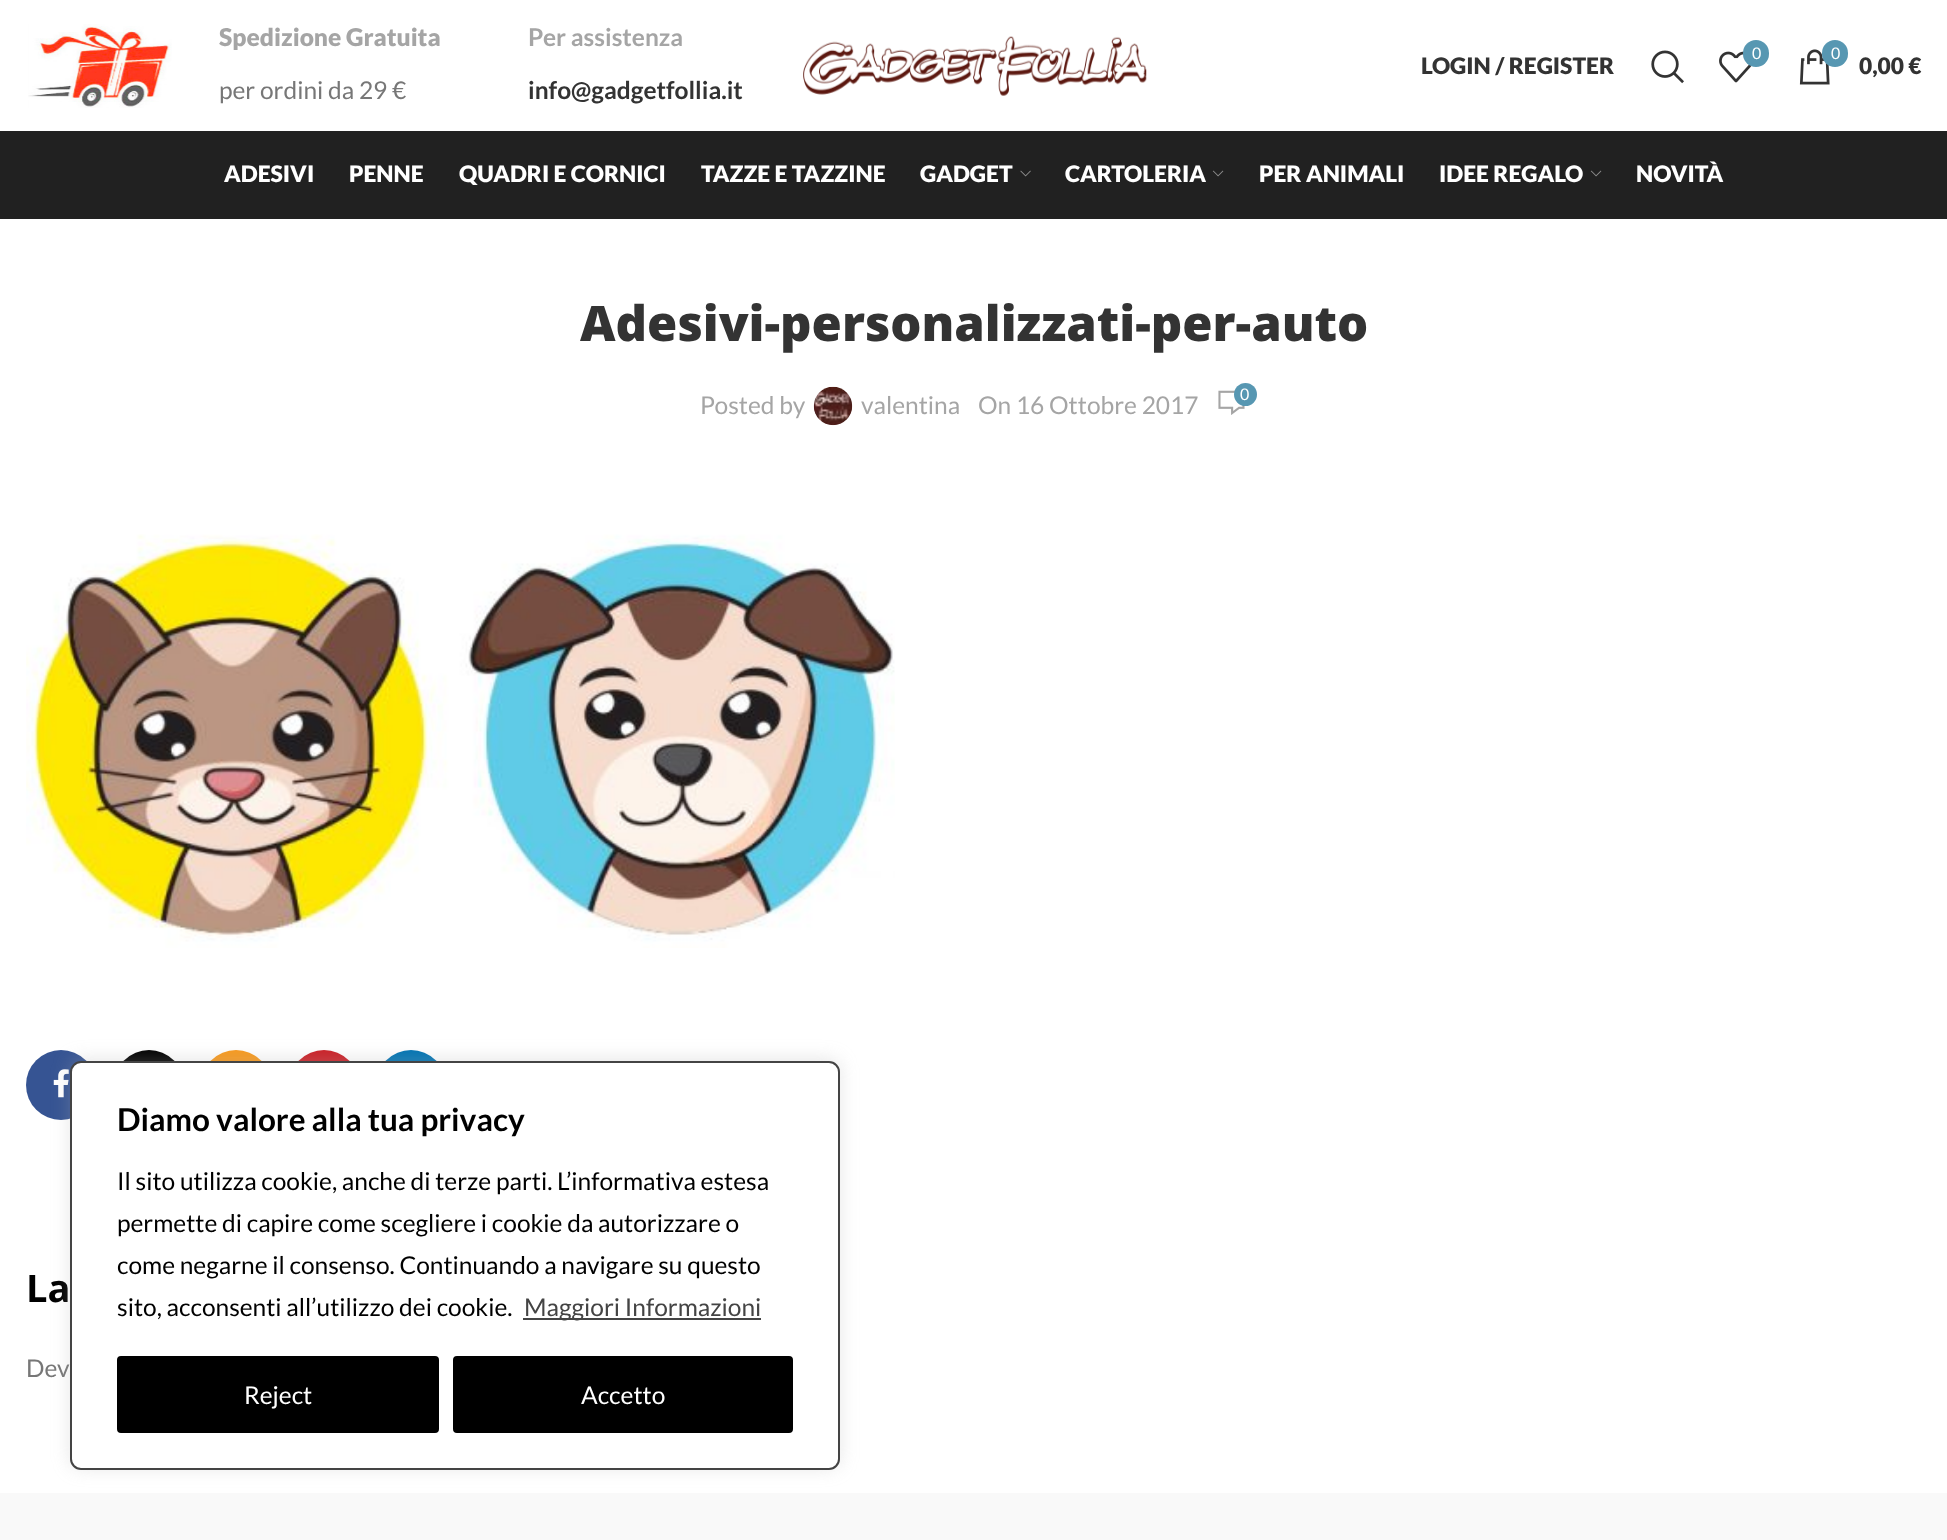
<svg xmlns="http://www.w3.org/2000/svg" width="1947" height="1540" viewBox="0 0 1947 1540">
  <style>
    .t1 { font: 900 24.5px Lato; fill: #a5a5a5; }
    .t2 { font: 24.5px Lato; fill: #777; }
    .t3 { font: bold 24.5px Lato; fill: #a5a5a5; }
    .t4 { font: bold 24.5px Lato; fill: #333; }
    .t5 { font: 900 22.75px Lato; fill: #333; }
    .t6 { font: 16px Lato; fill: #fff; }
    .t7 { font: 900 22.75px Lato; fill: #fff; }
    .t8 { font: 800 49px Open Sans; fill: #333; }
    .t9 { font: 24.5px Lato; fill: #a5a5a5; }
    .t10 { font: bold 38px Open Sans; fill: #000; }
    .t11 { font: bold 31.5px Lato; fill: #000; }
    .t12 { font: 24.5px Lato; fill: #000; }
    .t13 { font: 24.5px Lato; fill: #444; }
    .t14 { font: 24.5px Lato; fill: #fff; }
  </style>
  <rect width="100%" height="100%" fill="#fff"/>
  <image x="28" y="24" width="144" height="84" href="images/1.png"/>
  <text x="219" y="46" class="t1">Spedizione Gratuita</text>
  <text x="219" y="99" class="t2">per ordini da 29 €</text>
  <text x="528" y="46" class="t3">Per assistenza</text>
  <text x="528" y="99" class="t4">info@gadgetfollia.it</text>
  <image x="803" y="36" width="344" height="60" href="images/2.png"/>
  <text x="1421" y="74" class="t5">LOGIN / REGISTER</text>
  <image x="1651" y="50" width="33" height="34" href="images/3.png"/>
  <image x="1719" y="51" width="33" height="32" href="images/4.png"/>
  <rect x="1743" y="40" width="26" height="27" rx="13" fill="#5797b2"/>
  <text x="1752" y="59" class="t6">0</text>
  <image x="1799" y="49" width="31" height="36" href="images/5.png"/>
  <rect x="1822" y="40" width="26" height="27" rx="13" fill="#5797b2"/>
  <text x="1831" y="59" class="t6">0</text>
  <text x="1859" y="74" class="t5">0,00 €</text>
  <rect x="0" y="131" width="1947" height="88" fill="#212121"/>
  <text x="224" y="182" class="t7">ADESIVI</text>
  <text x="349" y="182" class="t7">PENNE</text>
  <text x="459" y="182" class="t7">QUADRI E CORNICI</text>
  <text x="701" y="182" class="t7">TAZZE E TAZZINE</text>
  <text x="920" y="182" class="t7">GADGET</text>
  <image x="1020" y="170" width="11" height="7" href="images/6.png"/>
  <text x="1065" y="182" class="t7">CARTOLERIA</text>
  <image x="1212" y="170" width="12" height="7" href="images/7.png"/>
  <text x="1259" y="182" class="t7">PER ANIMALI</text>
  <text x="1439" y="182" class="t7">IDEE REGALO</text>
  <image x="1590" y="170" width="12" height="7" href="images/7.png"/>
  <text x="1636" y="182" class="t7">NOVITÀ</text>
  <text x="580" y="341" class="t8">Adesivi-personalizzati-per-auto</text>
  <text x="700" y="414" class="t9">Posted by</text>
  <image x="813" y="386" width="40" height="40" href="images/8.png"/>
  <text x="861" y="414" class="t9">valentina</text>
  <text x="978" y="414" class="t9">On 16 Ottobre 2017</text>
  <image x="1218" y="390" width="27" height="25" href="images/9.png"/>
  <circle cx="1245.5" cy="394.5" r="11.5" fill="#5797b2"/>
  <text x="1240" y="400" class="t6">0</text>
  <image x="26" y="534" width="869" height="414" href="images/10.png"/>
  <circle cx="61" cy="1085" r="35" fill="#365493"/>
  <image x="53" y="1069" width="16" height="29" href="images/11.png"/>
  <circle cx="149" cy="1085" r="35" fill="#000"/>
  <circle cx="236" cy="1085" r="35" fill="#f89a1e"/>
  <circle cx="324" cy="1085" r="35" fill="#cb2027"/>
  <circle cx="411" cy="1085" r="35" fill="#0274b3"/>
  <text x="26" y="1302" class="t10">La</text>
  <text x="26" y="1377" class="t2">Dev</text>
  <rect x="0" y="1493" width="1947" height="47" fill="#f9f9f9"/>
  <rect x="70" y="1059" width="770" height="409" rx="11" fill="#acabab4d" filter="blur(9px)"/>
  <rect x="71" y="1062" width="768" height="407" rx="10" fill="#fff" stroke="#444" stroke-width="2"/>
  <text x="117" y="1131" class="t11">Diamo valore alla tua privacy</text>
  <text x="117" y="1190" class="t12">Il sito utilizza cookie, anche di terze parti. L’informativa estesa</text>
  <text x="117" y="1232" class="t12">permette di capire come scegliere i cookie da autorizzare o</text>
  <text x="117" y="1274" class="t12">come negarne il consenso. Continuando a navigare su questo</text>
  <text x="117" y="1316" class="t12">sito, acconsenti all’utilizzo dei cookie.</text>
  <rect x="523" y="1318" width="238" height="2" fill="#444"/>
  <text x="524" y="1316" class="t13">Maggiori Informazioni</text>
  <rect x="119" y="1358" width="318" height="73" rx="2" fill="#000" stroke="#000" stroke-width="4"/>
  <text x="244" y="1404" class="t14">Reject</text>
  <rect x="455" y="1358" width="336" height="73" rx="2" fill="#000" stroke="#000" stroke-width="4"/>
  <text x="581" y="1404" class="t14">Accetto</text>
</svg>
